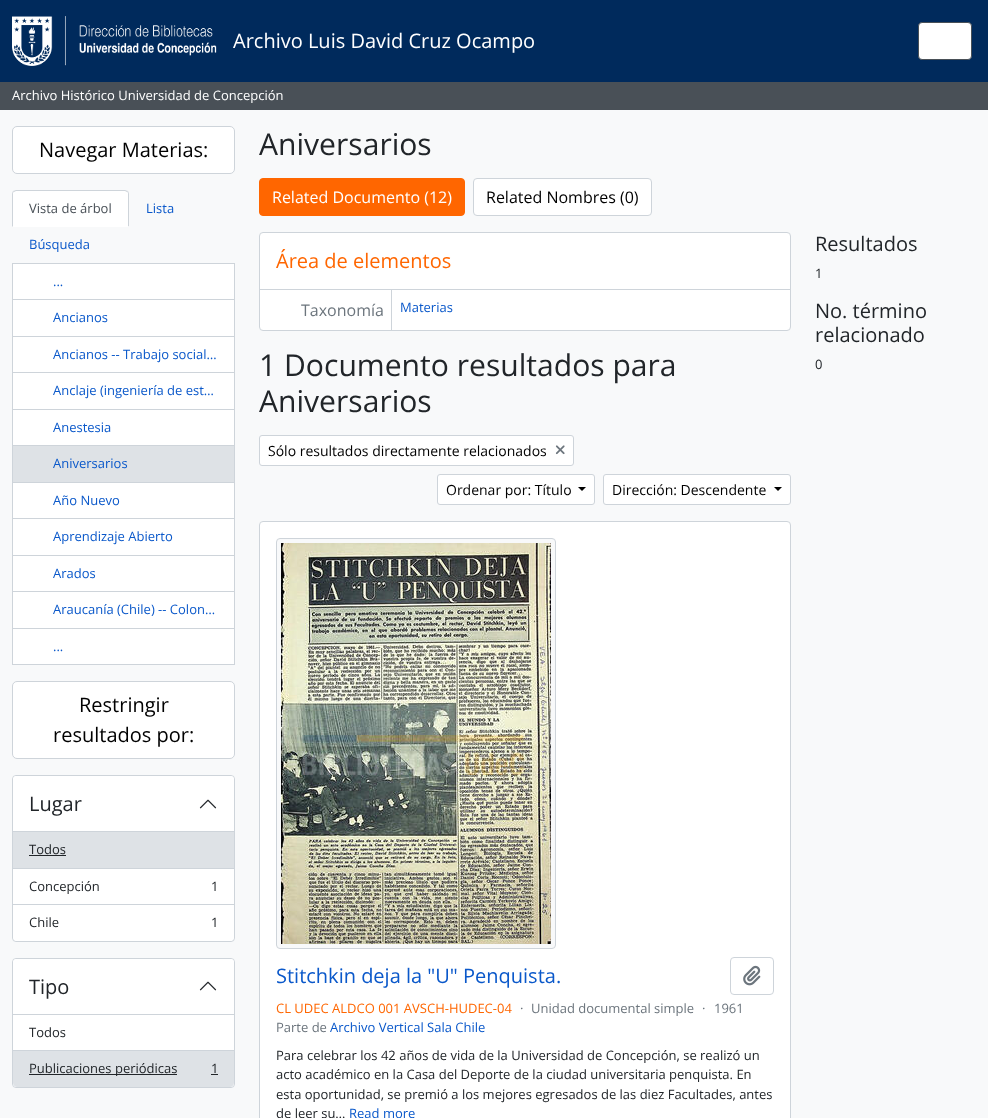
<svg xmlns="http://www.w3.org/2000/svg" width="988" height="1118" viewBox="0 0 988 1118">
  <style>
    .t1 { font: 20px Open Sans; fill: #fff; }
    .t2 { font: 13px Open Sans; fill: #fff; }
    .t3 { font: 20px Open Sans; fill: #000; }
    .t4 { font: 13px Open Sans; fill: #495057; }
    .t5 { font: 13px Open Sans; fill: #0a58ca; }
    .t6 { font: 20px Open Sans; fill: #212529; }
    .t7 { font: 13px Open Sans; fill: #212529; }
    .t8 { font: 30.1px Open Sans; fill: #212529; }
    .t9 { font: 16px Open Sans; fill: #fff; }
    .t10 { font: 16px Open Sans; fill: #000; }
    .t11 { font: 20px Open Sans; fill: #f60; }
    .t12 { font: 16px Open Sans; fill: #6c757d; }
    .t13 { font: 14px Open Sans; fill: #000; }
    .t14 { font: 20px Open Sans; fill: #0a58ca; }
    .t15 { font: 13px Open Sans; fill: #f60; }
    .t16 { font: 13px Open Sans; fill: #6c757d; }
  </style>
  <rect width="100%" height="100%" fill="#f8f9fa"/>
  <rect x="0" y="0" width="988" height="82" fill="#002a5c"/>
  <image x="12" y="16" width="205" height="50" href="images/1.png"/>
  <text x="233" y="48" class="t1">Archivo Luis David Cruz Ocampo</text>
  <rect x="918.5" y="22.5" width="53" height="37" rx="3.5" fill="#fff" stroke="#495057"/>
  <rect x="0" y="82" width="988" height="28" fill="#495057"/>
  <text x="12" y="100" class="t2">Archivo Histórico Universidad de Concepción</text>
  <rect x="12.5" y="126.5" width="222" height="47" rx="4.5" fill="#fff" stroke="#ced4da"/>
  <text x="39" y="157" class="t3">Navegar Materias:</text>
  <path d="M16 190H125C127 190 129 192 129 194V227H12V194C12 192 14 190 16 190Z" fill="#fff"/>
  <path d="M16 190L13 191L14 192L16 191H125L127 192L128 191L125 190Z" fill="#ced4da"/>
  <path d="M129 227V194C129 193 128.5 192 128 191L127 192C128 192 128 193 128 194V226Z" fill="#ced4da"/>
  <path d="M129 227L128 226H13L12 227Z" fill="#fff"/>
  <path d="M12 227L13 226V194C13 193 13 192 14 192L13 191C12.5 192 12 193 12 194Z" fill="#ced4da"/>
  <text x="29" y="213" class="t4">Vista de árbol</text>
  <text x="146" y="213" class="t5">Lista</text>
  <text x="29" y="249" class="t5">Búsqueda</text>
  <rect x="12" y="263" width="223" height="1" fill="#ced4da"/>
  <rect x="13" y="264" width="221" height="35" fill="#fff"/>
  <rect x="234" y="264" width="1" height="182" fill="#ced4da"/>
  <rect x="12" y="299" width="223" height="1" fill="#ced4da"/>
  <rect x="12" y="264" width="1" height="36" fill="#ced4da"/>
  <text x="53" y="286" class="t5">...</text>
  <rect x="13" y="300" width="221" height="36" fill="#fff"/>
  <rect x="12" y="336" width="223" height="1" fill="#ced4da"/>
  <rect x="12" y="300" width="1" height="37" fill="#ced4da"/>
  <text x="53" y="322" class="t5">Ancianos</text>
  <rect x="13" y="337" width="221" height="35" fill="#fff"/>
  <rect x="12" y="372" width="223" height="1" fill="#ced4da"/>
  <rect x="12" y="337" width="1" height="36" fill="#ced4da"/>
  <text x="53" y="359" class="t5">Ancianos -- Trabajo social…</text>
  <rect x="13" y="373" width="221" height="36" fill="#fff"/>
  <rect x="12" y="409" width="223" height="1" fill="#ced4da"/>
  <rect x="12" y="373" width="1" height="73" fill="#ced4da"/>
  <text x="53" y="395" class="t5">Anclaje (ingeniería de est…</text>
  <rect x="13" y="410" width="221" height="35" fill="#fff"/>
  <text x="53" y="432" class="t5">Anestesia</text>
  <rect x="12.5" y="445.5" width="222" height="37" fill="#dee2e6" stroke="#ced4da"/>
  <text x="53" y="468" class="t5">Aniversarios</text>
  <rect x="13" y="483" width="221" height="35" fill="#fff"/>
  <rect x="234" y="483" width="1" height="182" fill="#ced4da"/>
  <rect x="12" y="518" width="223" height="1" fill="#ced4da"/>
  <rect x="12" y="483" width="1" height="36" fill="#ced4da"/>
  <text x="53" y="505" class="t5">Año Nuevo</text>
  <rect x="13" y="519" width="221" height="36" fill="#fff"/>
  <rect x="12" y="555" width="223" height="1" fill="#ced4da"/>
  <rect x="12" y="519" width="1" height="37" fill="#ced4da"/>
  <text x="53" y="541" class="t5">Aprendizaje Abierto</text>
  <rect x="13" y="556" width="221" height="35" fill="#fff"/>
  <rect x="12" y="591" width="223" height="1" fill="#ced4da"/>
  <rect x="12" y="556" width="1" height="36" fill="#ced4da"/>
  <text x="53" y="578" class="t5">Arados</text>
  <rect x="13" y="592" width="221" height="36" fill="#fff"/>
  <rect x="12" y="628" width="223" height="1" fill="#ced4da"/>
  <rect x="12" y="592" width="1" height="37" fill="#ced4da"/>
  <text x="53" y="614" class="t5">Araucanía (Chile) -- Colon…</text>
  <rect x="13" y="629" width="221" height="35" fill="#fff"/>
  <rect x="12" y="664" width="223" height="1" fill="#ced4da"/>
  <rect x="12" y="629" width="1" height="36" fill="#ced4da"/>
  <text x="53" y="651" class="t5">...</text>
  <rect x="12.5" y="681.5" width="222" height="77" rx="4.5" fill="#fff" stroke="#ced4da"/>
  <text x="79" y="712" class="t3">Restringir</text>
  <text x="53" y="742" class="t3">resultados por:</text>
  <rect x="12.5" y="775.5" width="222" height="166" rx="3.5" fill="#fff" stroke="#ced4da"/>
  <path d="M16 776H231C232.5 776 234 777.5 234 779V832H13V779C13 777.5 14.5 776 16 776Z" fill="#fff"/>
  <rect x="13" y="831" width="221" height="1" fill="#ced4da"/>
  <text x="29" y="811" class="t6">Lugar</text>
  <image x="199" y="799" width="18" height="10" href="images/2.png"/>
  <rect x="13" y="832" width="221" height="36" fill="#dee2e6"/>
  <rect x="13" y="868" width="221" height="1" fill="#ced4da"/>
  <text x="29" y="854" class="t7">Todos</text>
  <rect x="29" y="855" width="37" height="1" fill="#212529"/>
  <rect x="13" y="904" width="221" height="1" fill="#ced4da"/>
  <text x="29" y="891" class="t7">Concepción</text>
  <text x="211" y="891" class="t7">1</text>
  <path d="M13 905H234V937C234 939 232 941 230 941H17C15 941 13 939 13 937Z" fill="#fff"/>
  <text x="29" y="927" class="t7">Chile</text>
  <text x="211" y="927" class="t7">1</text>
  <rect x="12.5" y="958.5" width="222" height="129" rx="3.5" fill="#fff" stroke="#ced4da"/>
  <path d="M16 959H231C232.5 959 234 960.5 234 962V1015H13V962C13 960.5 14.5 959 16 959Z" fill="#fff"/>
  <rect x="13" y="1014" width="221" height="1" fill="#ced4da"/>
  <text x="29" y="994" class="t6">Tipo</text>
  <image x="199" y="981" width="18" height="10" href="images/2.png"/>
  <rect x="13" y="1050" width="221" height="1" fill="#ced4da"/>
  <text x="29" y="1037" class="t7">Todos</text>
  <path d="M13 1051H234V1083C234 1085 232 1087 230 1087H17C15 1087 13 1085 13 1083Z" fill="#dee2e6"/>
  <rect x="29" y="1074" width="148" height="1" fill="#212529"/>
  <text x="29" y="1073" class="t7">Publicaciones periódicas</text>
  <text x="211" y="1073" class="t7">1</text>
  <rect x="211" y="1074" width="7" height="1" fill="#212529"/>
  <text x="259" y="155" class="t8">Aniversarios</text>
  <rect x="259.5" y="178.5" width="205" height="37" rx="3.5" fill="#f60" stroke="#f60"/>
  <text x="272" y="203" class="t9">Related Documento (12)</text>
  <rect x="473.5" y="178.5" width="178" height="37" rx="3.5" fill="#fff" stroke="#ced4da"/>
  <text x="486" y="203" class="t10">Related Nombres (0)</text>
  <rect x="259.5" y="232.5" width="531" height="98" rx="3.5" fill="#fff" stroke="#ced4da"/>
  <rect x="260" y="289" width="530" height="1" fill="#ced4da"/>
  <text x="276" y="268" class="t11">Área de elementos</text>
  <rect x="391" y="290" width="1" height="40" fill="#ced4da"/>
  <text x="301" y="316" class="t12">Taxonomía</text>
  <text x="400" y="312" class="t5">Materias</text>
  <text x="259" y="376" class="t8">1 Documento resultados para</text>
  <text x="259" y="412" class="t8">Aniversarios</text>
  <rect x="259.5" y="435.5" width="314" height="30" rx="2.5" fill="#fff" stroke="#ced4da"/>
  <text x="268" y="456" class="t13">Sólo resultados directamente relacionados</text>
  <image x="555" y="445" width="10" height="10" href="images/3.png"/>
  <rect x="437.5" y="474.5" width="157" height="30" rx="2.5" fill="#fff" stroke="#ced4da"/>
  <text x="446" y="495" class="t13">Ordenar por: Título</text>
  <path d="M578 487H586L582 491Z" fill="#000"/>
  <rect x="603.5" y="474.5" width="187" height="30" rx="2.5" fill="#fff" stroke="#ced4da"/>
  <text x="612" y="495" class="t13">Dirección: Descendente</text>
  <path d="M774 487H782L778 491Z" fill="#000"/>
  <rect x="259.5" y="521.5" width="531" height="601" rx="3.5" fill="#fff" stroke="#ced4da"/>
  <rect x="276.5" y="538.5" width="279" height="410" rx="3.5" fill="#f8f9fa" stroke="#ced4da"/>
  <image x="281" y="543" width="270" height="401" href="images/4.png"/>
  <text x="276" y="983" class="t14">Stitchkin deja la "U" Penquista.</text>
  <rect x="730.5" y="957.5" width="43" height="37" rx="3.5" fill="none" stroke="#ced4da"/>
  <image x="743" y="965" width="18" height="21" href="images/5.png"/>
  <text x="276" y="1013" class="t15">CL UDEC ALDCO 001 AVSCH-HUDEC-04</text>
  <text x="520" y="1013" class="t16">·</text>
  <text x="531" y="1013" class="t16">Unidad documental simple</text>
  <text x="702" y="1013" class="t16">·</text>
  <text x="714" y="1013" class="t16">1961</text>
  <text x="276" y="1032" class="t16">Parte de</text>
  <text x="330" y="1032" class="t5">Archivo Vertical Sala Chile</text>
  <text x="276" y="1060" class="t7">Para celebrar los 42 años de vida de la Universidad de Concepción, se realizó un</text>
  <text x="276" y="1079" class="t7">acto académico en la Casa del Deporte de la ciudad universitaria penquista. En</text>
  <text x="276" y="1099" class="t7">esta oportunidad, se premió a los mejores egresados de las diez Facultades, antes</text>
  <text x="276" y="1118" class="t7">de leer su…</text>
  <text x="349" y="1118" class="t5">Read more</text>
  <text x="815" y="251" class="t6">Resultados</text>
  <text x="815" y="278" class="t7">1</text>
  <text x="815" y="318" class="t6">No. término</text>
  <text x="815" y="342" class="t6">relacionado</text>
  <text x="815" y="369" class="t7">0</text>
</svg>
